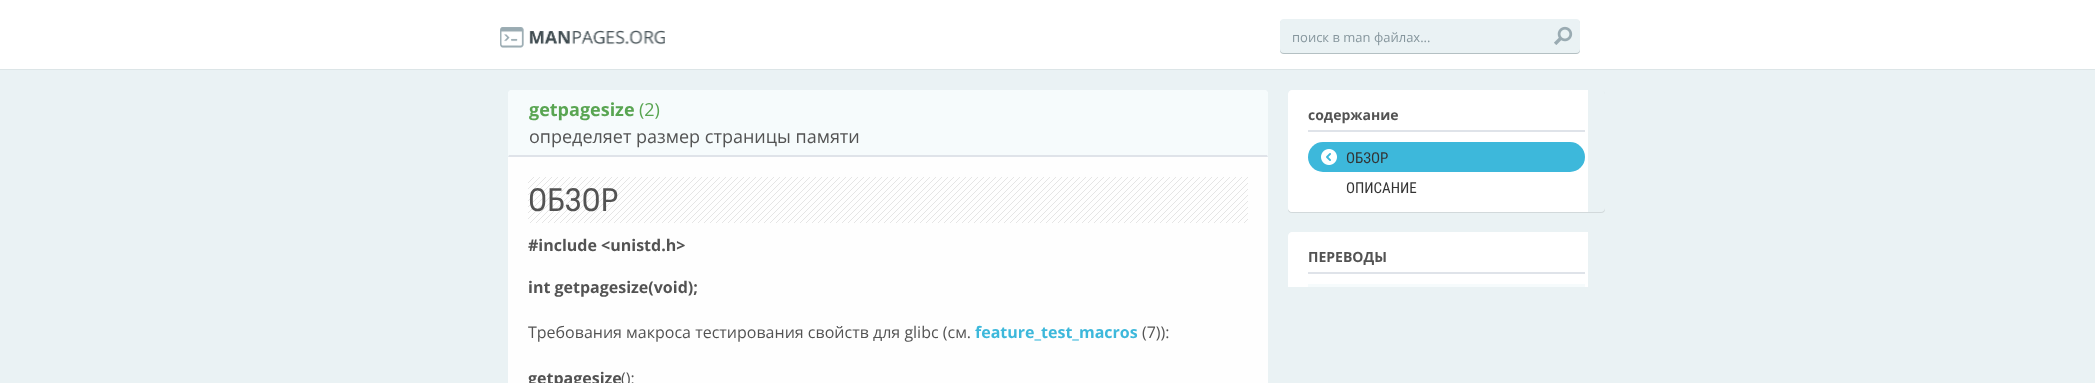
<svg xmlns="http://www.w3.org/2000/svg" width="2095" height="383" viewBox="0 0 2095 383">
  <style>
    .t1 { font: 13px Open Sans; fill: #86969d; }
    .t2 { font: bold 18px Open Sans; fill: #59a552; }
    .t3 { font: 18px Open Sans; fill: #59a552; }
    .t4 { font: 18px Open Sans; fill: #535353; }
    .t5 { font: 32px Roboto Condensed; fill: #535353; }
    .t6 { font: bold 16px Open Sans; fill: #535353; }
    .t7 { font: 16px Open Sans; fill: #535353; }
    .t8 { font: bold 16px Open Sans; fill: #3db8db; }
    .t9 { font: bold 14px Open Sans; fill: #535353; }
    .t10 { font: 15px Roboto Condensed; fill: #333; }
  </style>
  <defs>
    <clipPath id="clip1"><path d="M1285 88H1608V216H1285ZM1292 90H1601C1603 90 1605 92 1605 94V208C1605 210 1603 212 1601 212H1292C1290 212 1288 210 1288 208V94C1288 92 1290 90 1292 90Z" clip-rule="evenodd"/></clipPath>
  </defs>
  <rect width="100%" height="100%" fill="#eaf2f4"/>
  <rect x="0" y="0" width="2095" height="69" fill="#fff"/>
  <rect x="0" y="69" width="2095" height="1" fill="#dce5e7"/>
  <image x="500" y="27" width="165" height="21" href="images/1.png"/>
  <rect x="1280" y="20" width="300" height="34" rx="4" fill="#062f374d" filter="blur(0.5px)"/>
  <rect x="1280" y="19" width="300" height="34" rx="4" fill="#eaf2f4"/>
  <text x="1292" y="42" class="t1">поиск в man файлах...</text>
  <image x="1554" y="26" width="19" height="19" href="images/2.png"/>
  <path d="M512 90H1264C1266 90 1268 92 1268 94V383H508V94C508 92 510 90 512 90Z" fill="#fefefe"/>
  <path d="M511 90H1265C1266.5 90 1268 91.5 1268 93V157H508V93C508 91.5 509.5 90 511 90Z" fill="#f6fbfc"/>
  <path d="M1268 157L1267 155H509L508 157Z" fill="#dfe3e9"/>
  <text x="529" y="116" class="t2">getpagesize</text>
  <text x="639" y="116" class="t3">(2)</text>
  <text x="529" y="143" class="t4">определяет размер страницы памяти</text>
  <image x="528" y="177" width="720" height="46" href="images/3.png"/>
  <text x="528" y="211" class="t5">ОБЗОР</text>
  <text x="528" y="251" class="t6">#include &lt;unistd.h&gt;</text>
  <text x="528" y="293" class="t6">int getpagesize(void);</text>
  <text x="528" y="338" class="t7">Требования макроса тестирования свойств для glibc (см.</text>
  <text x="975" y="338" class="t8">feature_test_macros</text>
  <text x="1142" y="338" class="t7">(7)):</text>
  <text x="528" y="384" class="t6">getpagesize</text>
  <text x="621" y="384" class="t7">():</text>
  <g clip-path="url(#clip1)">
    <rect x="1288" y="91" width="317" height="122" rx="4" fill="#0000001a" filter="blur(0.5px)"/>
  </g>
  <path d="M1292 90H1588V212H1292C1290 212 1288 210 1288 208V94C1288 92 1290 90 1292 90Z" fill="#fff"/>
  <rect x="1308" y="130" width="277" height="2" fill="#dfe3e9"/>
  <text x="1308" y="120" class="t9">содержание</text>
  <rect x="1308" y="142" width="277" height="30" rx="15" fill="#3db8db"/>
  <image x="1321" y="149" width="16" height="16" href="images/4.png"/>
  <text x="1346" y="163" class="t10">ОБЗОР</text>
  <text x="1346" y="193" class="t10">ОПИСАНИЕ</text>
  <path d="M1292 232H1588V287H1288V236C1288 234 1290 232 1292 232Z" fill="#fff"/>
  <rect x="1308" y="272" width="277" height="2" fill="#dfe3e9"/>
  <text x="1308" y="262" class="t9">ПЕРЕВОДЫ</text>
  <rect x="1308" y="284" width="277" height="3" fill="#f6fbfc"/>
</svg>
